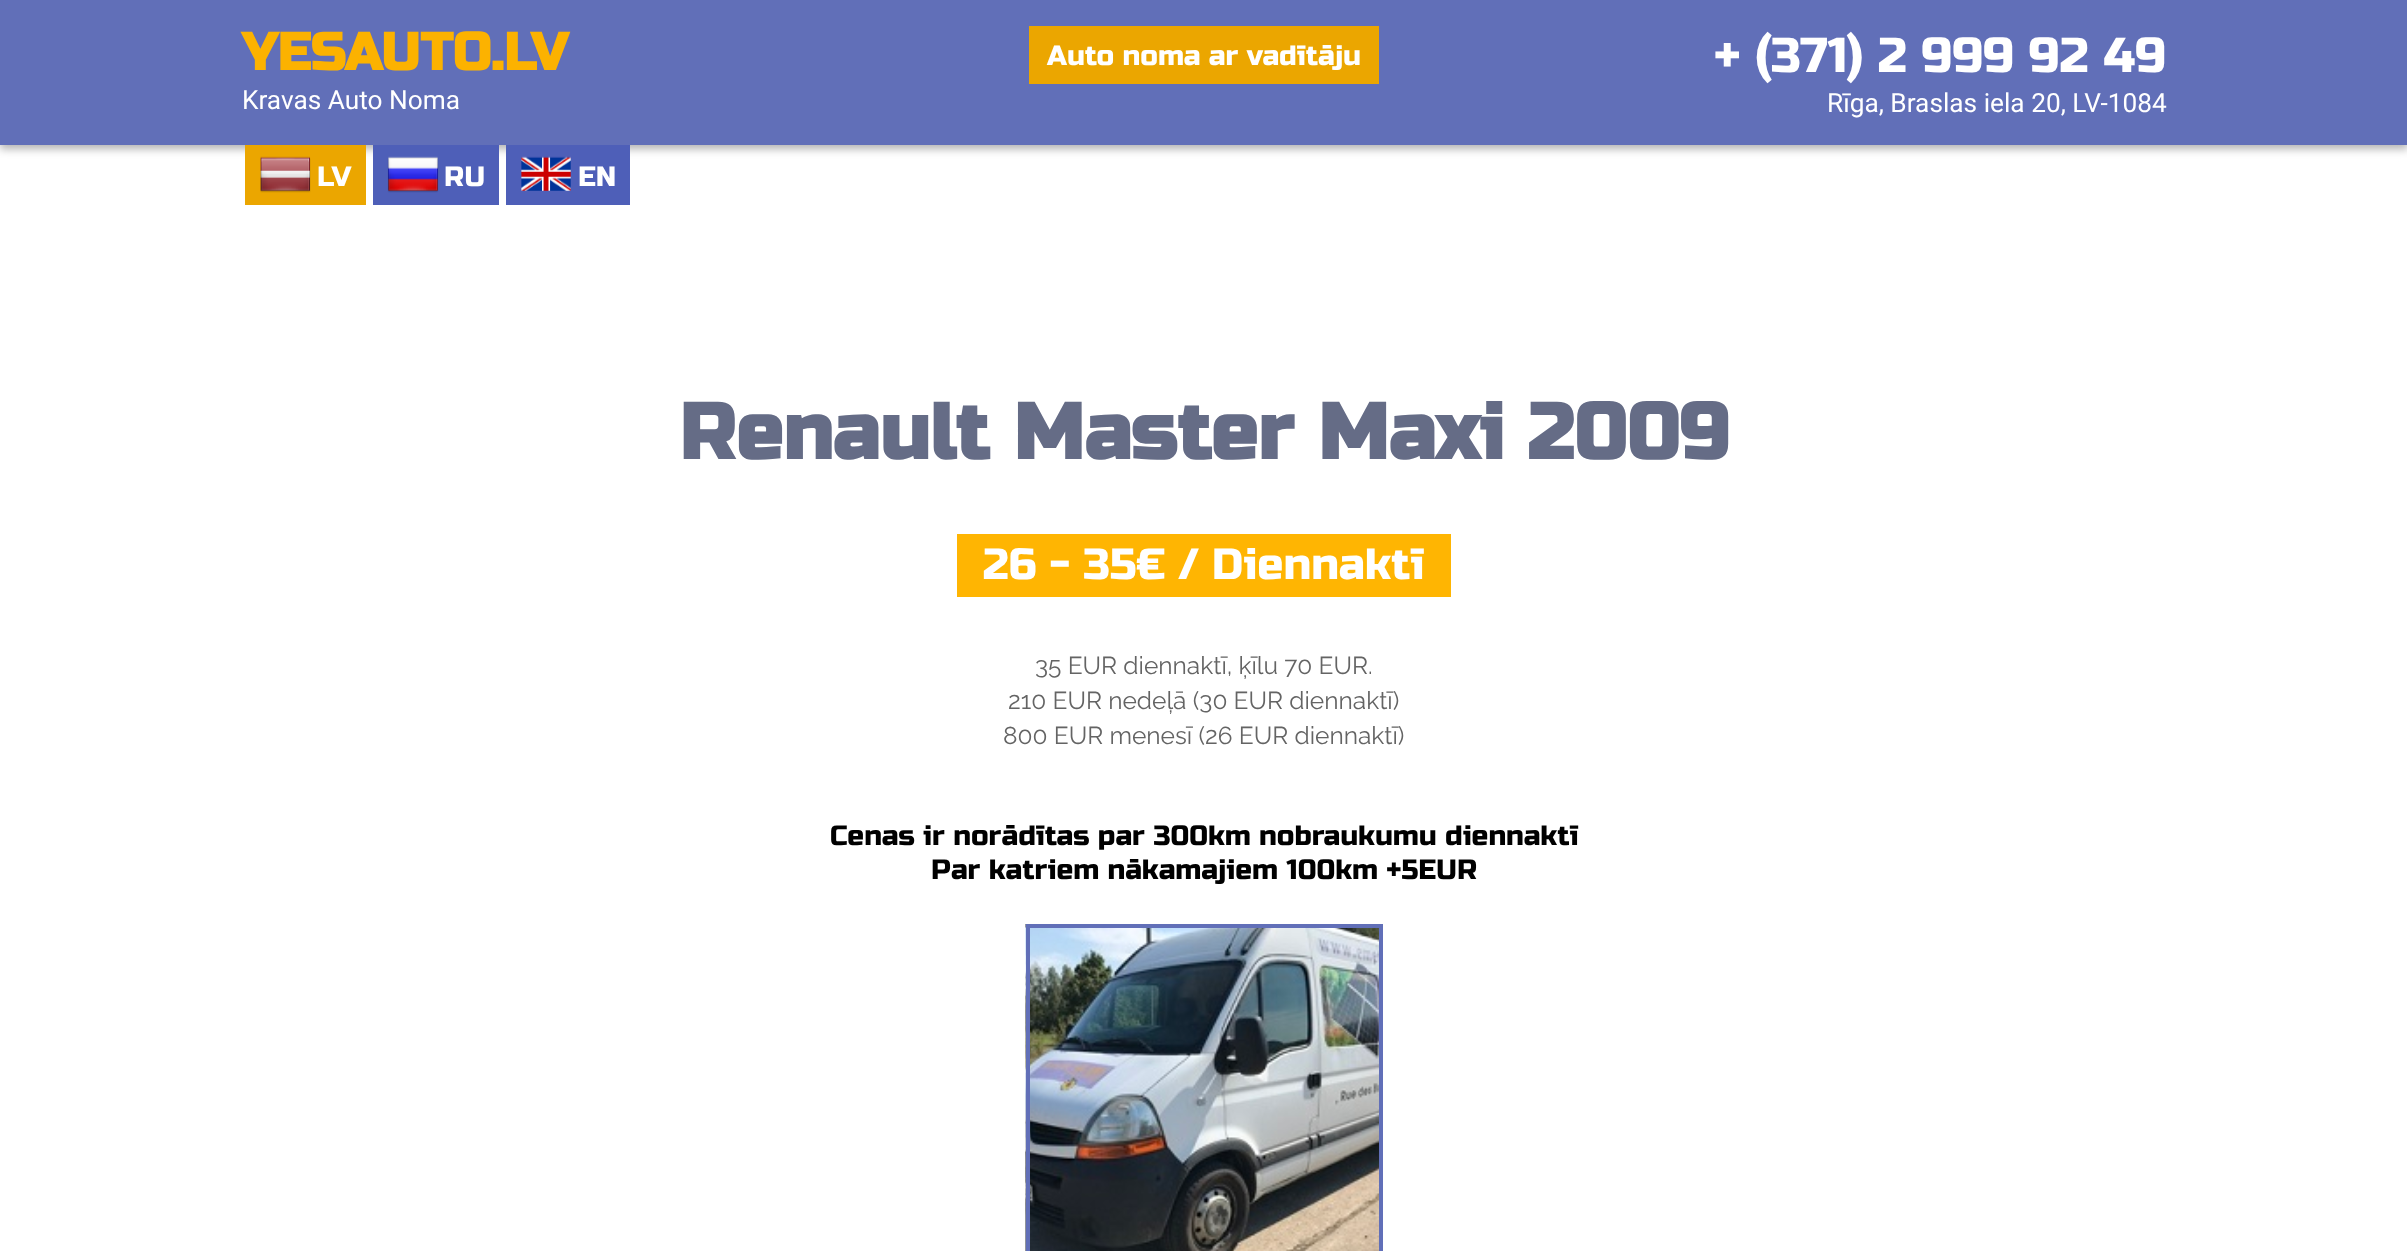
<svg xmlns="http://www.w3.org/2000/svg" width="2407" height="1251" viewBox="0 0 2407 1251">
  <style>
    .t1 { font: bold 52.5px Russo One; fill: #fcb200; }
    .t2 { font: 26.25px Roboto; fill: #fff; }
    .t3 { font: 28px Russo One; fill: #fff; }
    .t4 { font: 49px Russo One; fill: #fff; }
    .t5 { font: bold 78.75px Russo One; fill: #656c86; }
    .t6 { font: 43.75px Russo One; fill: #fff; }
    .t7 { font: 100 24.5px Raleway; fill: #646464; }
    .t8 { font: 28px Russo One; fill: #000; }
  </style>
  <rect width="100%" height="100%" fill="#fff"/>
  <rect x="0" y="4" width="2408" height="145" fill="#0000004d" filter="blur(4.5px)"/>
  <rect x="0" y="0" width="2407" height="145" fill="#616fb8"/>
  <text x="242" y="70" class="t1">YESAUTO.LV</text>
  <text x="242" y="109" class="t2">Kravas Auto Noma</text>
  <rect x="1029" y="26" width="350" height="58" fill="#eba600"/>
  <text x="1047" y="65" class="t3">Auto noma ar vadītāju</text>
  <text x="1714" y="72" class="t4">+ (371) 2 999 92 49</text>
  <text x="1827" y="112" class="t2">Rīga, Braslas iela 20, LV-1084</text>
  <rect x="245" y="145" width="121" height="60" fill="#eba600"/>
  <image x="260" y="156" width="51" height="37" href="images/1.png"/>
  <text x="317" y="186" class="t3">LV</text>
  <rect x="373" y="145" width="126" height="60" fill="#4e5fb8"/>
  <image x="387" y="156" width="52" height="37" href="images/2.png"/>
  <text x="444" y="186" class="t3">RU</text>
  <rect x="506" y="145" width="124" height="60" fill="#4e5fb8"/>
  <image x="521" y="156" width="50" height="35" href="images/3.png"/>
  <text x="578" y="186" class="t3">EN</text>
  <text x="679" y="459" class="t5">Renault Master Maxi 2009</text>
  <rect x="957" y="534" width="494" height="63" fill="#ffb502"/>
  <text x="983" y="579" class="t6">26 - 35€ / Diennaktī</text>
  <text x="1035" y="674" class="t7">35 EUR diennaktī, ķīlu 70 EUR.</text>
  <text x="1008" y="709" class="t7">210 EUR nedeļā (30 EUR diennaktī)</text>
  <text x="1003" y="744" class="t7">800 EUR menesī (26 EUR diennaktī)</text>
  <text x="830" y="845" class="t8">Cenas ir norādītas par 300km nobraukumu diennaktī</text>
  <text x="931" y="879" class="t8">Par katriem nākamajiem 100km +5EUR</text>
  <image x="1025" y="924" width="354" height="327" href="images/4.png"/>
  <rect x="1028" y="926" width="353" height="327" fill="none" stroke="#616fb8" stroke-width="4"/>
</svg>
